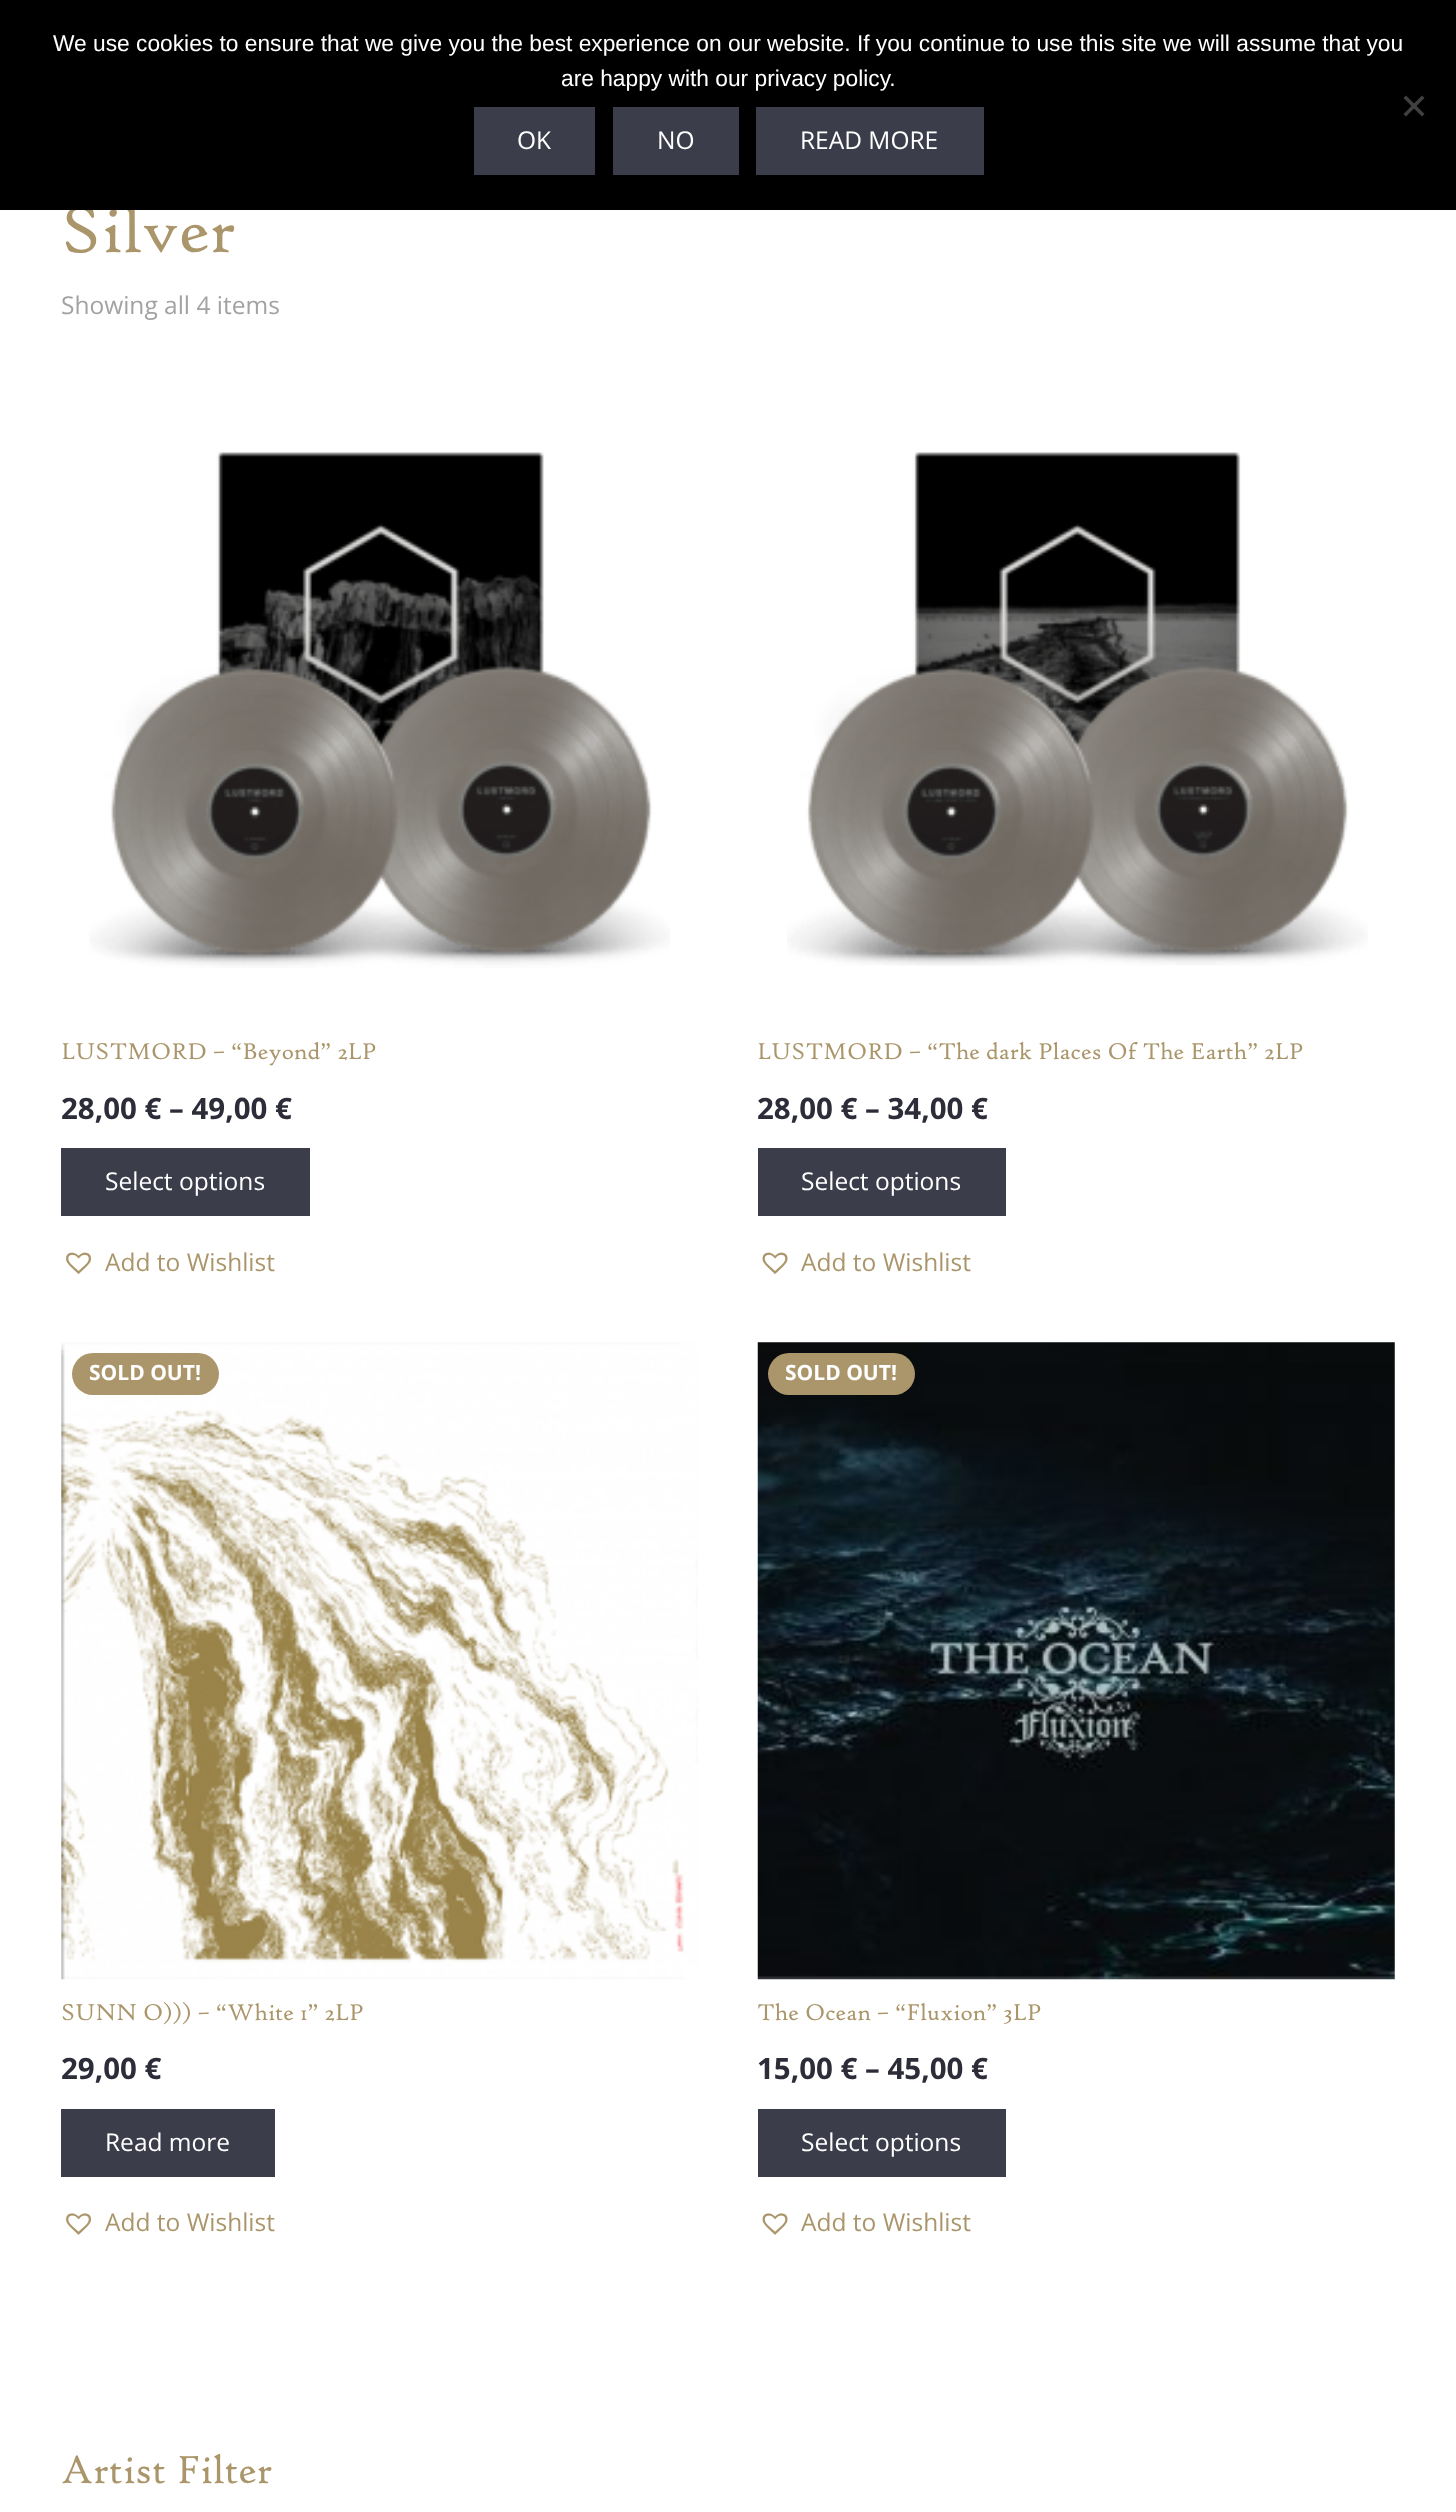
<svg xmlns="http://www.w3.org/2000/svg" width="1456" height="2512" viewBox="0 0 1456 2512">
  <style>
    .t1 { font: 70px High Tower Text; fill: #ab966b; }
    .t2 { font: 22.75px Liberation Sans; fill: #fff; }
    .t3 { font: 24.5px Open Sans; fill: #fff; }
    .t4 { font: 24.5px Open Sans; fill: #a2a2a2; }
    .t5 { font: 24.5px High Tower Text; fill: #ab966b; }
    .t6 { font: bold 29.5px Open Sans; fill: #2c2d38; }
    .t7 { font: 24.5px Open Sans; fill: #ab966b; }
    .t8 { font: bold 21px Open Sans; fill: #fff; }
    .t9 { font: 42px High Tower Text; fill: #ab966b; }
  </style>
  <rect width="100%" height="100%" fill="#fff"/>
  <text x="61" y="252" class="t1">Silver</text>
  <rect x="0" y="0" width="1456" height="210" fill="#000"/>
  <text x="53" y="51" class="t2">We use cookies to ensure that we give you the best experience on our website. If you continue to use this site we will assume that you</text>
  <text x="561" y="86" class="t2">are happy with our privacy policy.</text>
  <path d="M1422 95.5L1424.5 98L1406 116.5L1403.5 114Z" fill="#404040"/>
  <path d="M1403.5 98L1406 95.5L1424.5 114L1422 116.5Z" fill="#404040"/>
  <rect x="474" y="107" width="121" height="68" fill="#3c3d4b"/>
  <text x="517" y="149" class="t3">OK</text>
  <rect x="613" y="107" width="126" height="68" fill="#3c3d4b"/>
  <text x="657" y="149" class="t3">NO</text>
  <rect x="756" y="107" width="228" height="68" fill="#3c3d4b"/>
  <text x="800" y="149" class="t3">READ MORE</text>
  <text x="61" y="314" class="t4">Showing all 4 items</text>
  <image x="89" y="452" width="581" height="516" href="images/1.png"/>
  <text x="61" y="1059" class="t5">LUSTMORD – “Beyond” 2LP</text>
  <text x="61" y="1119" class="t6">28,00 € – 49,00 €</text>
  <rect x="61" y="1148" width="249" height="68" fill="#3c3d4b"/>
  <text x="105" y="1190" class="t3">Select options</text>
  <image x="66" y="1252" width="25" height="22" href="images/2.png"/>
  <text x="105" y="1271" class="t7">Add to Wishlist</text>
  <image x="787" y="452" width="581" height="514" href="images/3.png"/>
  <text x="757" y="1059" class="t5">LUSTMORD – “The dark Places Of The Earth” 2LP</text>
  <text x="757" y="1119" class="t6">28,00 € – 34,00 €</text>
  <rect x="758" y="1148" width="248" height="68" fill="#3c3d4b"/>
  <text x="801" y="1190" class="t3">Select options</text>
  <image x="762" y="1252" width="26" height="22" href="images/4.png"/>
  <text x="801" y="1271" class="t7">Add to Wishlist</text>
  <image x="61" y="1342" width="637" height="638" href="images/5.png"/>
  <rect x="72" y="1353" width="147" height="42" rx="21" fill="#ab966b"/>
  <text x="89" y="1380" class="t8">SOLD OUT!</text>
  <text x="61" y="2020" class="t5">SUNN O))) – “White 1” 2LP</text>
  <text x="61" y="2079" class="t6">29,00 €</text>
  <rect x="61" y="2109" width="214" height="68" fill="#3c3d4b"/>
  <text x="105" y="2151" class="t3">Read more</text>
  <image x="66" y="2213" width="25" height="22" href="images/6.png"/>
  <text x="105" y="2231" class="t7">Add to Wishlist</text>
  <image x="757" y="1342" width="638" height="638" href="images/7.png"/>
  <rect x="768" y="1353" width="147" height="42" rx="21" fill="#ab966b"/>
  <text x="785" y="1380" class="t8">SOLD OUT!</text>
  <text x="757" y="2020" class="t5">The Ocean – “Fluxion” 3LP</text>
  <text x="757" y="2079" class="t6">15,00 € – 45,00 €</text>
  <rect x="758" y="2109" width="248" height="68" fill="#3c3d4b"/>
  <text x="801" y="2151" class="t3">Select options</text>
  <image x="762" y="2213" width="26" height="22" href="images/8.png"/>
  <text x="801" y="2231" class="t7">Add to Wishlist</text>
  <text x="61" y="2483" class="t9">Artist Filter</text>
</svg>
